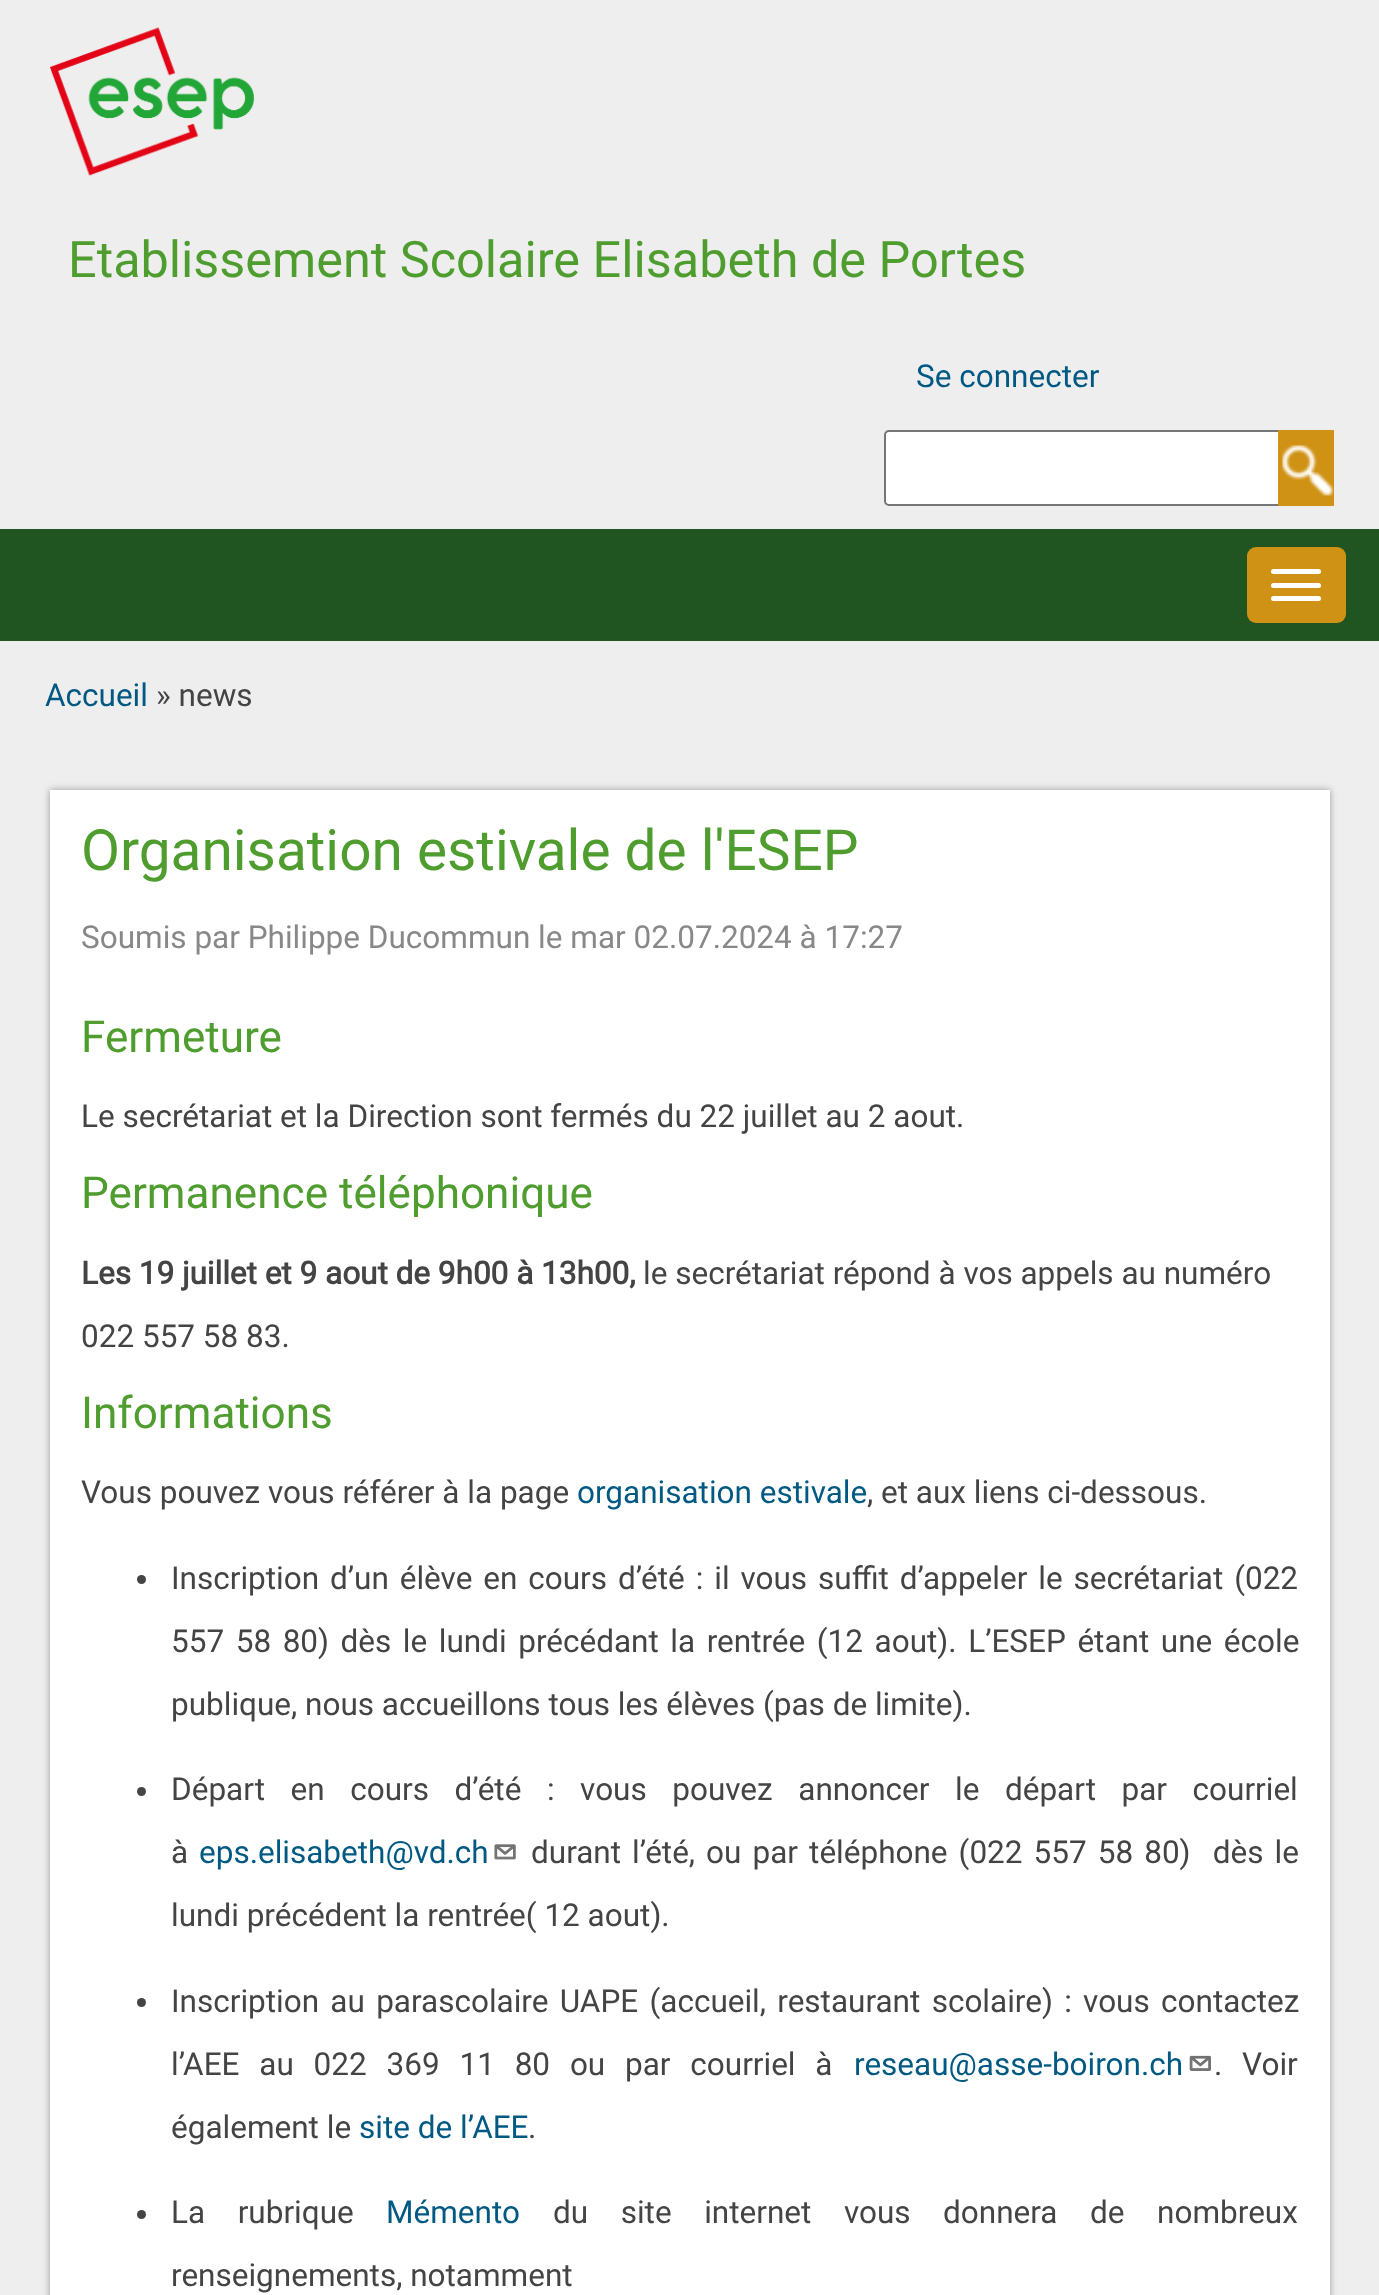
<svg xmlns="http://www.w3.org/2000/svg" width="1379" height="2295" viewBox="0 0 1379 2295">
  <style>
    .t1 { font: 50.4px Roboto; fill: #4e9d2e; }
    .t2 { font: 31.5px Roboto; fill: #005983; }
    .t3 { font: 31.5px Roboto; fill: #444; }
    .t4 { font: 56.75px Roboto; fill: #4e9d2e; }
    .t5 { font: 31.5px Roboto; fill: #888; }
    .t6 { font: 44.1px Roboto; fill: #4e9d2e; }
    .t7 { font: bold 31.5px Roboto; fill: #444; }
  </style>
  <rect width="100%" height="100%" fill="#eee"/>
  <image x="50" y="27" width="205" height="149" href="images/1.png"/>
  <text x="68" y="277" class="t1">Etablissement Scolaire Elisabeth de Portes</text>
  <text x="916" y="387" class="t2">Se connecter</text>
  <rect x="885" y="431" width="448" height="74" rx="4" fill="#fff" stroke="#767676" stroke-width="2"/>
  <rect x="1278" y="430" width="56" height="76" fill="#d09215"/>
  <image x="1282" y="445" width="52" height="51" href="images/2.png"/>
  <rect x="0" y="529" width="1379" height="112" fill="#205522"/>
  <rect x="1247" y="547" width="99" height="76" rx="9" fill="#d09215"/>
  <rect x="1271" y="569" width="50" height="5" rx="2.5" fill="#fff"/>
  <rect x="1271" y="583" width="50" height="5" rx="2.5" fill="#fff"/>
  <rect x="1271" y="596" width="50" height="5" rx="2.5" fill="#fff"/>
  <text x="45" y="706" class="t2">Accueil</text>
  <text x="156" y="706" class="t3">» news</text>
  <rect x="50" y="790" width="1280" height="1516" fill="#999" filter="blur(3.5px)"/>
  <rect x="50" y="790" width="1280" height="1505" fill="#fff"/>
  <text x="81" y="870" class="t4">Organisation estivale de l'ESEP</text>
  <text x="81" y="948" class="t5">Soumis par Philippe Ducommun le mar 02.07.2024 à 17:27</text>
  <text x="81" y="1052" class="t6">Fermeture</text>
  <text x="81" y="1127" class="t3">Le secrétariat et la Direction sont fermés du 22 juillet au 2 aout.</text>
  <text x="81" y="1208" class="t6">Permanence téléphonique</text>
  <text x="81" y="1284" class="t7">Les 19 juillet et 9 aout de 9h00 à 13h00,</text>
  <text x="643" y="1284" class="t3">le secrétariat répond à vos appels au numéro</text>
  <text x="81" y="1347" class="t3">022 557 58 83.</text>
  <text x="81" y="1428" class="t6">Informations</text>
  <text x="81" y="1503" class="t3">Vous pouvez vous référer à la page</text>
  <text x="577" y="1503" class="t2">organisation estivale</text>
  <text x="867" y="1503" class="t3">, et aux liens ci-dessous.</text>
  <circle cx="141.5" cy="1579.5" r="4.5" fill="#444"/>
  <text x="171" y="1589" word-spacing="3.1" class="t3">Inscription d’un élève en cours d’été : il vous suffit d’appeler le secrétariat (022</text>
  <text x="171" y="1652" word-spacing="3.75" class="t3">557 58 80) dès le lundi précédant la rentrée (12 aout). L’ESEP étant une école</text>
  <text x="171" y="1715" class="t3">publique, nous accueillons tous les élèves (pas de limite).</text>
  <circle cx="141.5" cy="1791.5" r="4.5" fill="#444"/>
  <text x="171" y="1800" word-spacing="17.75" class="t3">Départ en cours d’été : vous pouvez annoncer le départ par courriel</text>
  <text x="171" y="1863" class="t3">à</text>
  <text x="199" y="1863" class="t2">eps.elisabeth@vd.ch</text>
  <image x="494" y="1844" width="22" height="16" href="images/3.png"/>
  <text x="531" y="1863" word-spacing="3.25" class="t3" xml:space="preserve">durant l’été, ou par téléphone (022 557 58 80)  dès le</text>
  <text x="171" y="1926" class="t3">lundi précédent la rentrée( 12 aout).</text>
  <circle cx="141.5" cy="2002.5" r="4.5" fill="#444"/>
  <text x="171" y="2012" word-spacing="3.5" class="t3">Inscription au parascolaire UAPE (accueil, restaurant scolaire) : vous contactez</text>
  <text x="171" y="2075" word-spacing="12" class="t3">l’AEE au 022 369 11 80 ou par courriel à</text>
  <text x="854" y="2075" class="t2">reseau@asse-boiron.ch</text>
  <image x="1189" y="2055" width="22" height="16" href="images/4.png"/>
  <text x="1214" y="2075" word-spacing="12" class="t3">. Voir</text>
  <text x="171" y="2138" class="t3">également le</text>
  <text x="359" y="2138" class="t2">site de l’AEE</text>
  <text x="528" y="2138" class="t3">.</text>
  <circle cx="141.5" cy="2214.5" r="4.5" fill="#444"/>
  <text x="171" y="2223" word-spacing="24.75" class="t3">La rubrique</text>
  <text x="386" y="2223" class="t2">Mémento</text>
  <text x="553" y="2223" word-spacing="24.75" class="t3">du site internet vous donnera de nombreux</text>
  <text x="171" y="2286" class="t3">renseignements, notamment</text>
</svg>
